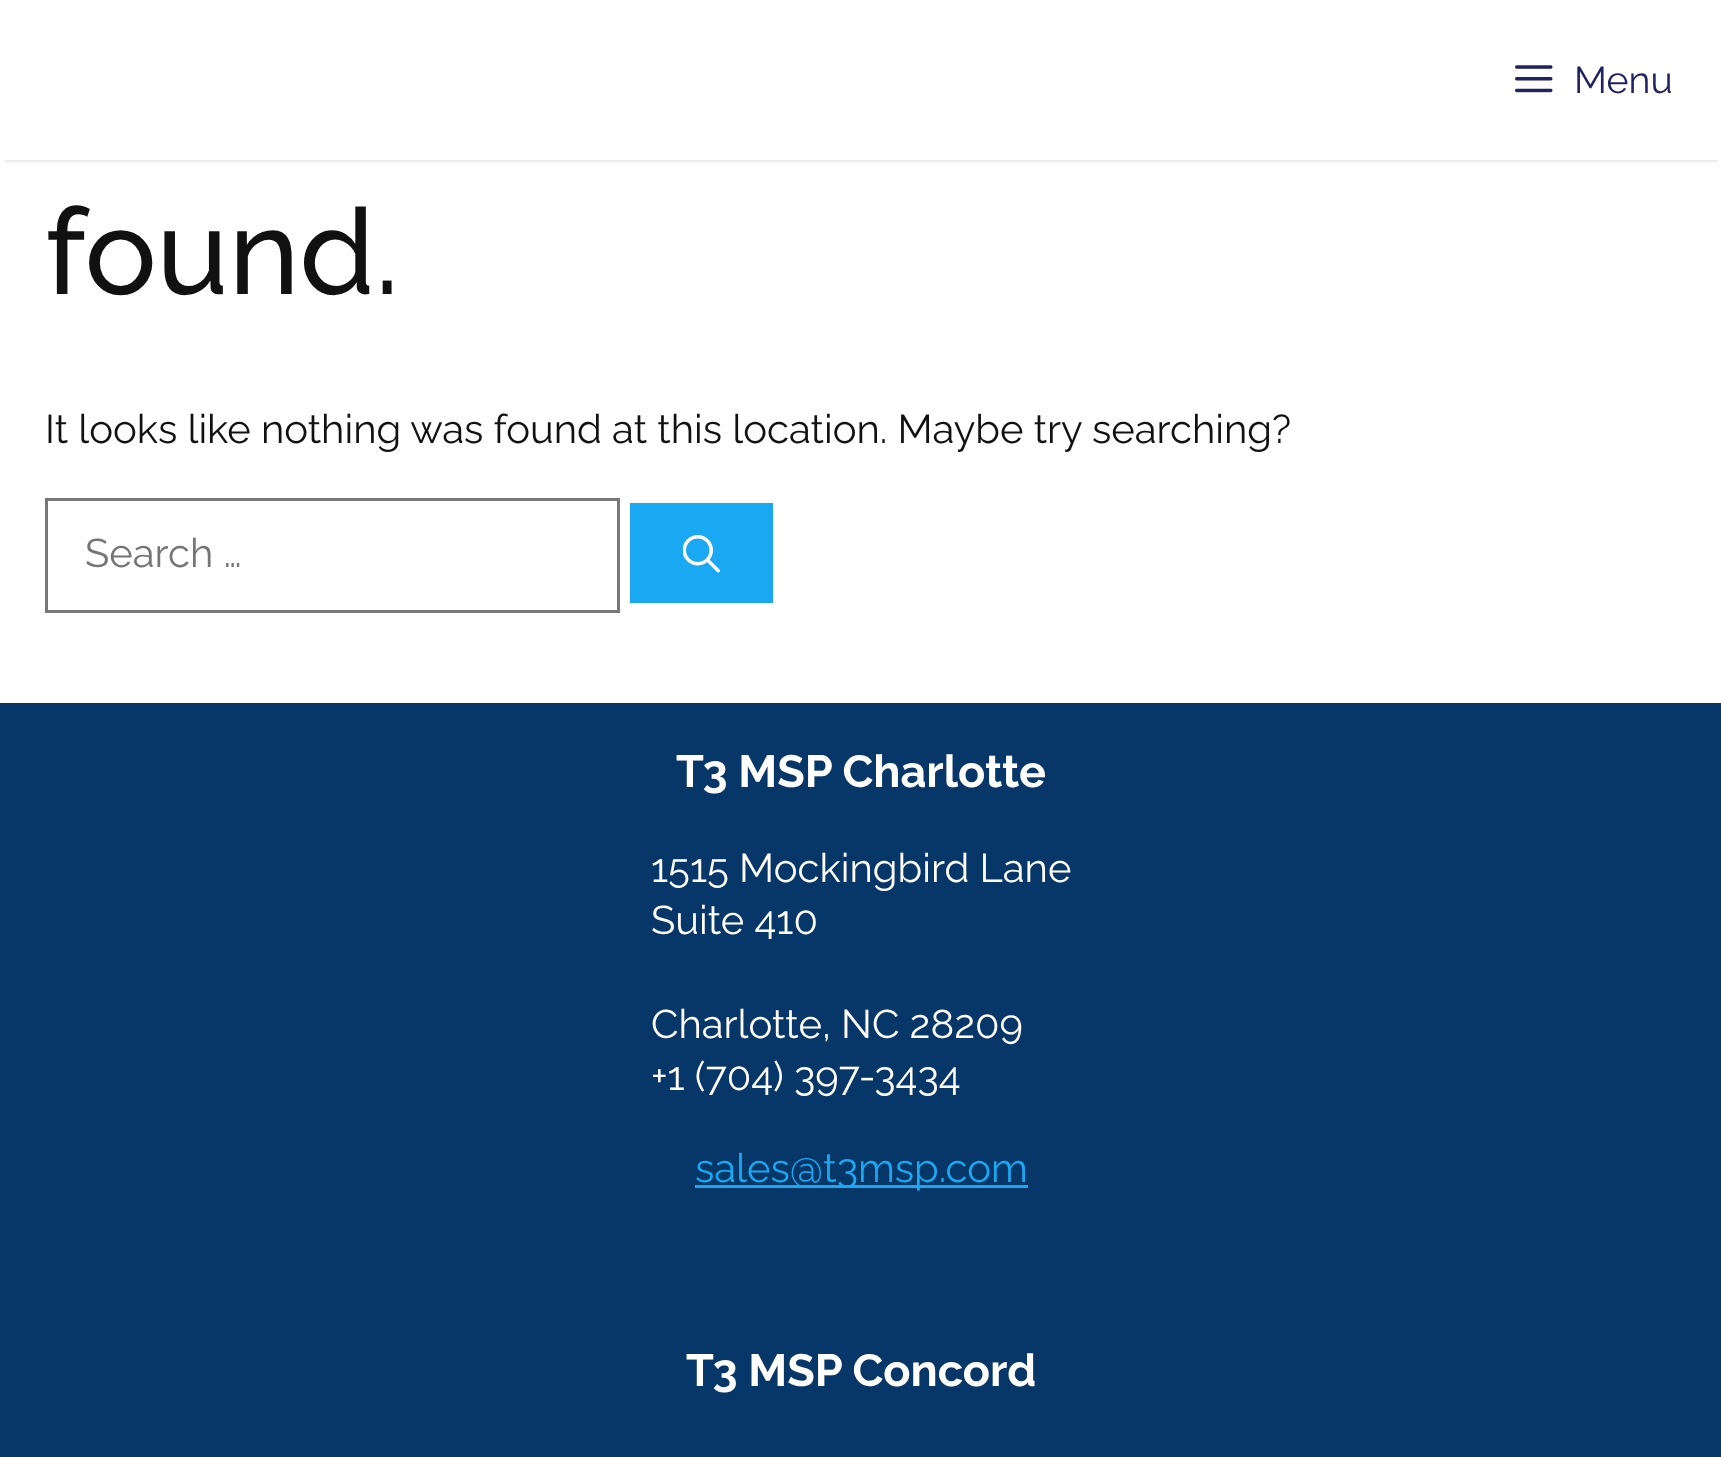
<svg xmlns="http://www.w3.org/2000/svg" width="1721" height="1457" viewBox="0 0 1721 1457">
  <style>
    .t1 { font: 37.5px Raleway; fill: #202262; }
    .t2 { font: 500 120px Raleway; fill: #111; }
    .t3 { font: 40px Raleway; fill: #111; }
    .t4 { font: 40px Raleway; fill: #757575; }
    .t5 { font: bold 45px Raleway; fill: #fff; }
    .t6 { font: 40px Raleway; fill: #fff; }
    .t7 { font: 40px Raleway; fill: #1aa8f3; }
  </style>
  <rect width="100%" height="100%" fill="#fff"/>
  <rect x="5" y="10" width="1713" height="150" fill="#00000033" filter="blur(2.5px)"/>
  <rect x="1" y="6" width="1720" height="154" fill="#fff"/>
  <image x="1515" y="65" width="38" height="28" href="images/1.png"/>
  <text x="1574" y="93" class="t1">Menu</text>
  <text x="45" y="294" class="t2">found.</text>
  <text x="45" y="443" class="t3">It looks like nothing was found at this location. Maybe try searching?</text>
  <rect x="46.5" y="499.5" width="572" height="112" fill="none" stroke="#777" stroke-width="3"/>
  <text x="85" y="567" class="t4">Search …</text>
  <rect x="630" y="503" width="143" height="100" fill="#1aa8f3"/>
  <image x="683" y="535" width="37" height="38" href="images/2.png"/>
  <rect x="0" y="703" width="1721" height="754" fill="#073768"/>
  <text x="676" y="787" class="t5">T3 MSP Charlotte</text>
  <text x="651" y="882" class="t6">1515 Mockingbird Lane</text>
  <text x="651" y="934" class="t6">Suite 410</text>
  <text x="651" y="1038" class="t6">Charlotte, NC 28209</text>
  <text x="651" y="1090" class="t6">+1 (704) 397-3434</text>
  <rect x="695" y="1185" width="333" height="3" fill="#1aa8f3"/>
  <text x="695" y="1182" class="t7">sales@t3msp.com</text>
  <text x="686" y="1386" class="t5">T3 MSP Concord</text>
</svg>
